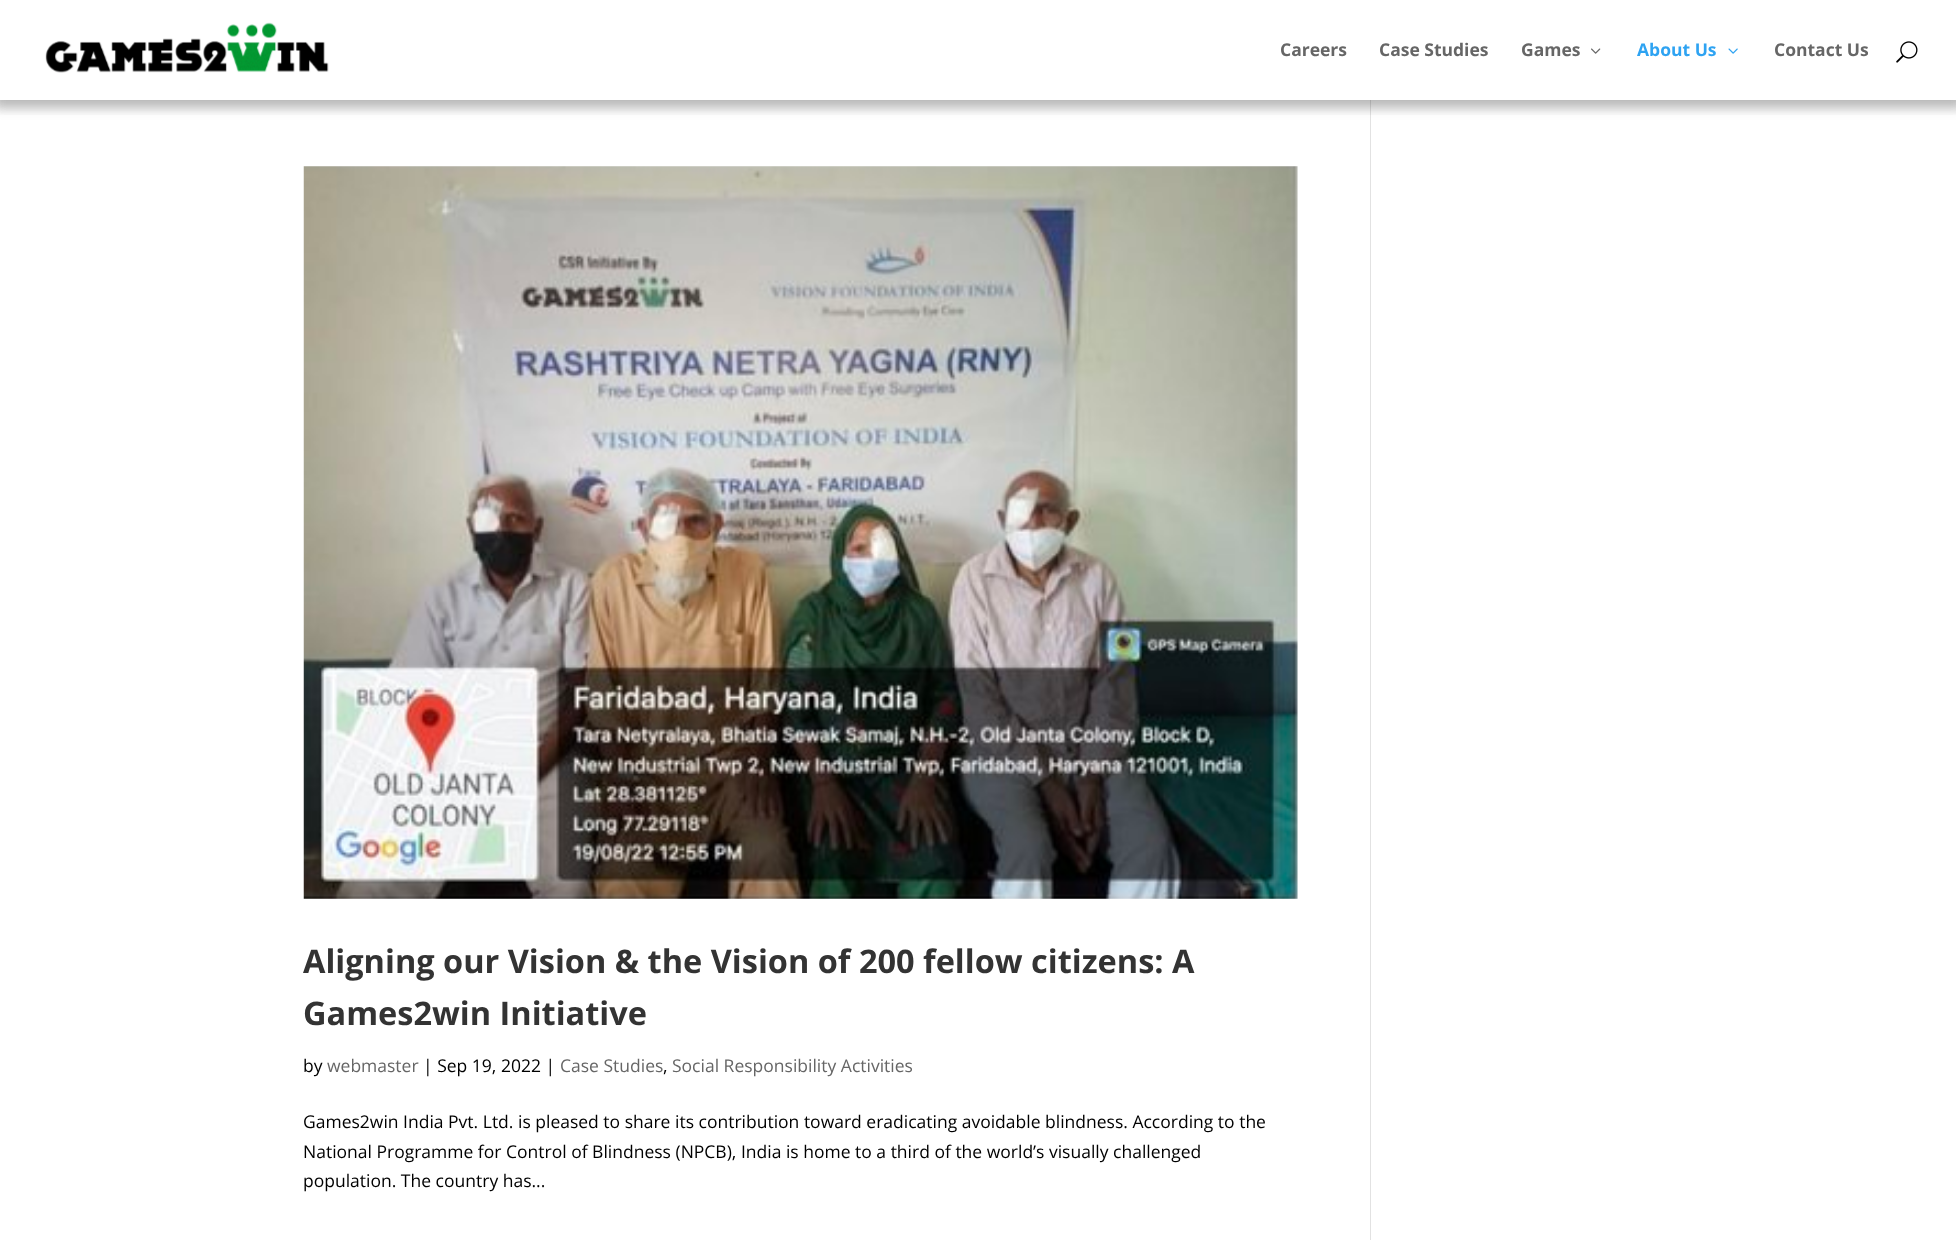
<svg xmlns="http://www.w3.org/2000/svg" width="1956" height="1240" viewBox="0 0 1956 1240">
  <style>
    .t1 { font: bold 17.5px Open Sans; fill: #666; }
    .t2 { font: bold 17.5px Open Sans; fill: #2ea3f2; }
    .t3 { font: bold 32.5px Open Sans; fill: #333; }
    .t4 { font: 17.5px Open Sans; fill: #000; }
    .t5 { font: 17.5px Open Sans; fill: #666; }
  </style>
  <defs>
    <clipPath id="clip1"><rect x="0" y="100" width="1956" height="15"/></clipPath>
  </defs>
  <rect width="100%" height="100%" fill="#fff"/>
  <rect x="1370" y="94" width="1" height="1146" fill="#e2e2e2"/>
  <rect x="-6" y="-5" width="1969" height="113" fill="#00000026" filter="blur(6px)"/>
  <rect x="0" y="0" width="1956" height="100" fill="#fff"/>
  <g clip-path="url(#clip1)">
    <rect x="-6" y="-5" width="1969" height="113" fill="#00000026" filter="blur(6px)"/>
  </g>
  <image x="45" y="22" width="284" height="51" href="images/1.png"/>
  <text x="1280" y="56" class="t1">Careers</text>
  <text x="1379" y="56" class="t1">Case Studies</text>
  <text x="1521" y="56" class="t1">Games</text>
  <image x="1591" y="48" width="10" height="6" href="images/2.png"/>
  <text x="1637" y="56" class="t2">About Us</text>
  <image x="1728" y="48" width="10" height="6" href="images/3.png"/>
  <text x="1774" y="56" class="t1">Contact Us</text>
  <image x="1896" y="41" width="22" height="22" href="images/4.png"/>
  <image x="303" y="166" width="995" height="733" href="images/5.png"/>
  <text x="303" y="973" class="t3">Aligning our Vision &amp; the Vision of 200 fellow citizens: A</text>
  <text x="303" y="1025" class="t3">Games2win Initiative</text>
  <text x="303" y="1072" class="t4">by</text>
  <text x="327" y="1072" class="t5">webmaster</text>
  <text x="423" y="1072" class="t4">| Sep 19, 2022 |</text>
  <text x="560" y="1072" class="t5">Case Studies</text>
  <text x="663" y="1072" class="t4">,</text>
  <text x="672" y="1072" class="t5">Social Responsibility Activities</text>
  <text x="303" y="1128" class="t4">Games2win India Pvt. Ltd. is pleased to share its contribution toward eradicating avoidable blindness. According to the</text>
  <text x="303" y="1158" class="t4">National Programme for Control of Blindness (NPCB), India is home to a third of the world’s visually challenged</text>
  <text x="303" y="1187" class="t4">population. The country has...</text>
</svg>
